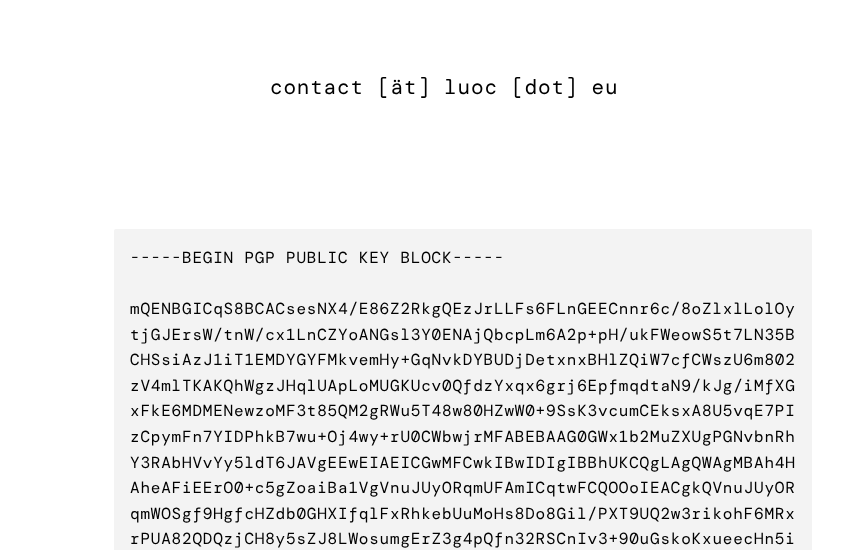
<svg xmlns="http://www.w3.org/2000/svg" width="856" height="550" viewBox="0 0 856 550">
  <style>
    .t1 { font: 21px DM Mono; letter-spacing: 0.8px; fill: #000; }
    .t2 { font: 16px DM Mono; letter-spacing: 0.8px; fill: #000; }
  </style>
  <rect width="100%" height="100%" fill="#fff"/>
  <text x="270" y="94" class="t1">contact [ät] luoc [dot] eu</text>
  <rect x="114" y="229" width="698" height="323" rx="2" fill="#f3f3f3"/>
  <text x="130" y="263" class="t2">-----BEGIN PGP PUBLIC KEY BLOCK-----</text>
  <text x="130" y="314" class="t2">mQENBGICqS8BCACsesNX4/E86Z2RkgQEzJrLLFs6FLnGEECnnr6c/8oZlxlLolOy</text>
  <text x="130" y="340" class="t2">tjGJErsW/tnW/cx1LnCZYoANGsl3Y0ENAjQbcpLm6A2p+pH/ukFWeowS5t7LN35B</text>
  <text x="130" y="365" class="t2">CHSsiAzJ1iT1EMDYGYFMkvemHy+GqNvkDYBUDjDetxnxBHlZQiW7cfCWszU6m802</text>
  <text x="130" y="391" class="t2">zV4mlTKAKQhWgzJHqlUApLoMUGKUcv0QfdzYxqx6grj6EpfmqdtaN9/kJg/iMfXG</text>
  <text x="130" y="416" class="t2">xFkE6MDMENewzoMF3t85QM2gRWu5T48w80HZwW0+9SsK3vcumCEksxA8U5vqE7PI</text>
  <text x="130" y="442" class="t2">zCpymFn7YIDPhkB7wu+Oj4wy+rU0CWbwjrMFABEBAAG0GWx1b2MuZXUgPGNvbnRh</text>
  <text x="130" y="468" class="t2">Y3RAbHVvYy5ldT6JAVgEEwEIAEICGwMFCwkIBwIDIgIBBhUKCQgLAgQWAgMBAh4H</text>
  <text x="130" y="493" class="t2">AheAFiEErO0+c5gZoaiBa1VgVnuJUyORqmUFAmICqtwFCQOOoIEACgkQVnuJUyOR</text>
  <text x="130" y="519" class="t2">qmWOSgf9HgfcHZdb0GHXIfqlFxRhkebUuMoHs8Do8Gil/PXT9UQ2w3rikohF6MRx</text>
  <text x="130" y="544" class="t2">rPUA82QDQzjCH8y5sZJ8LWosumgErZ3g4pQfn32RSCnIv3+90uGskoKxueecHn5i</text>
</svg>
